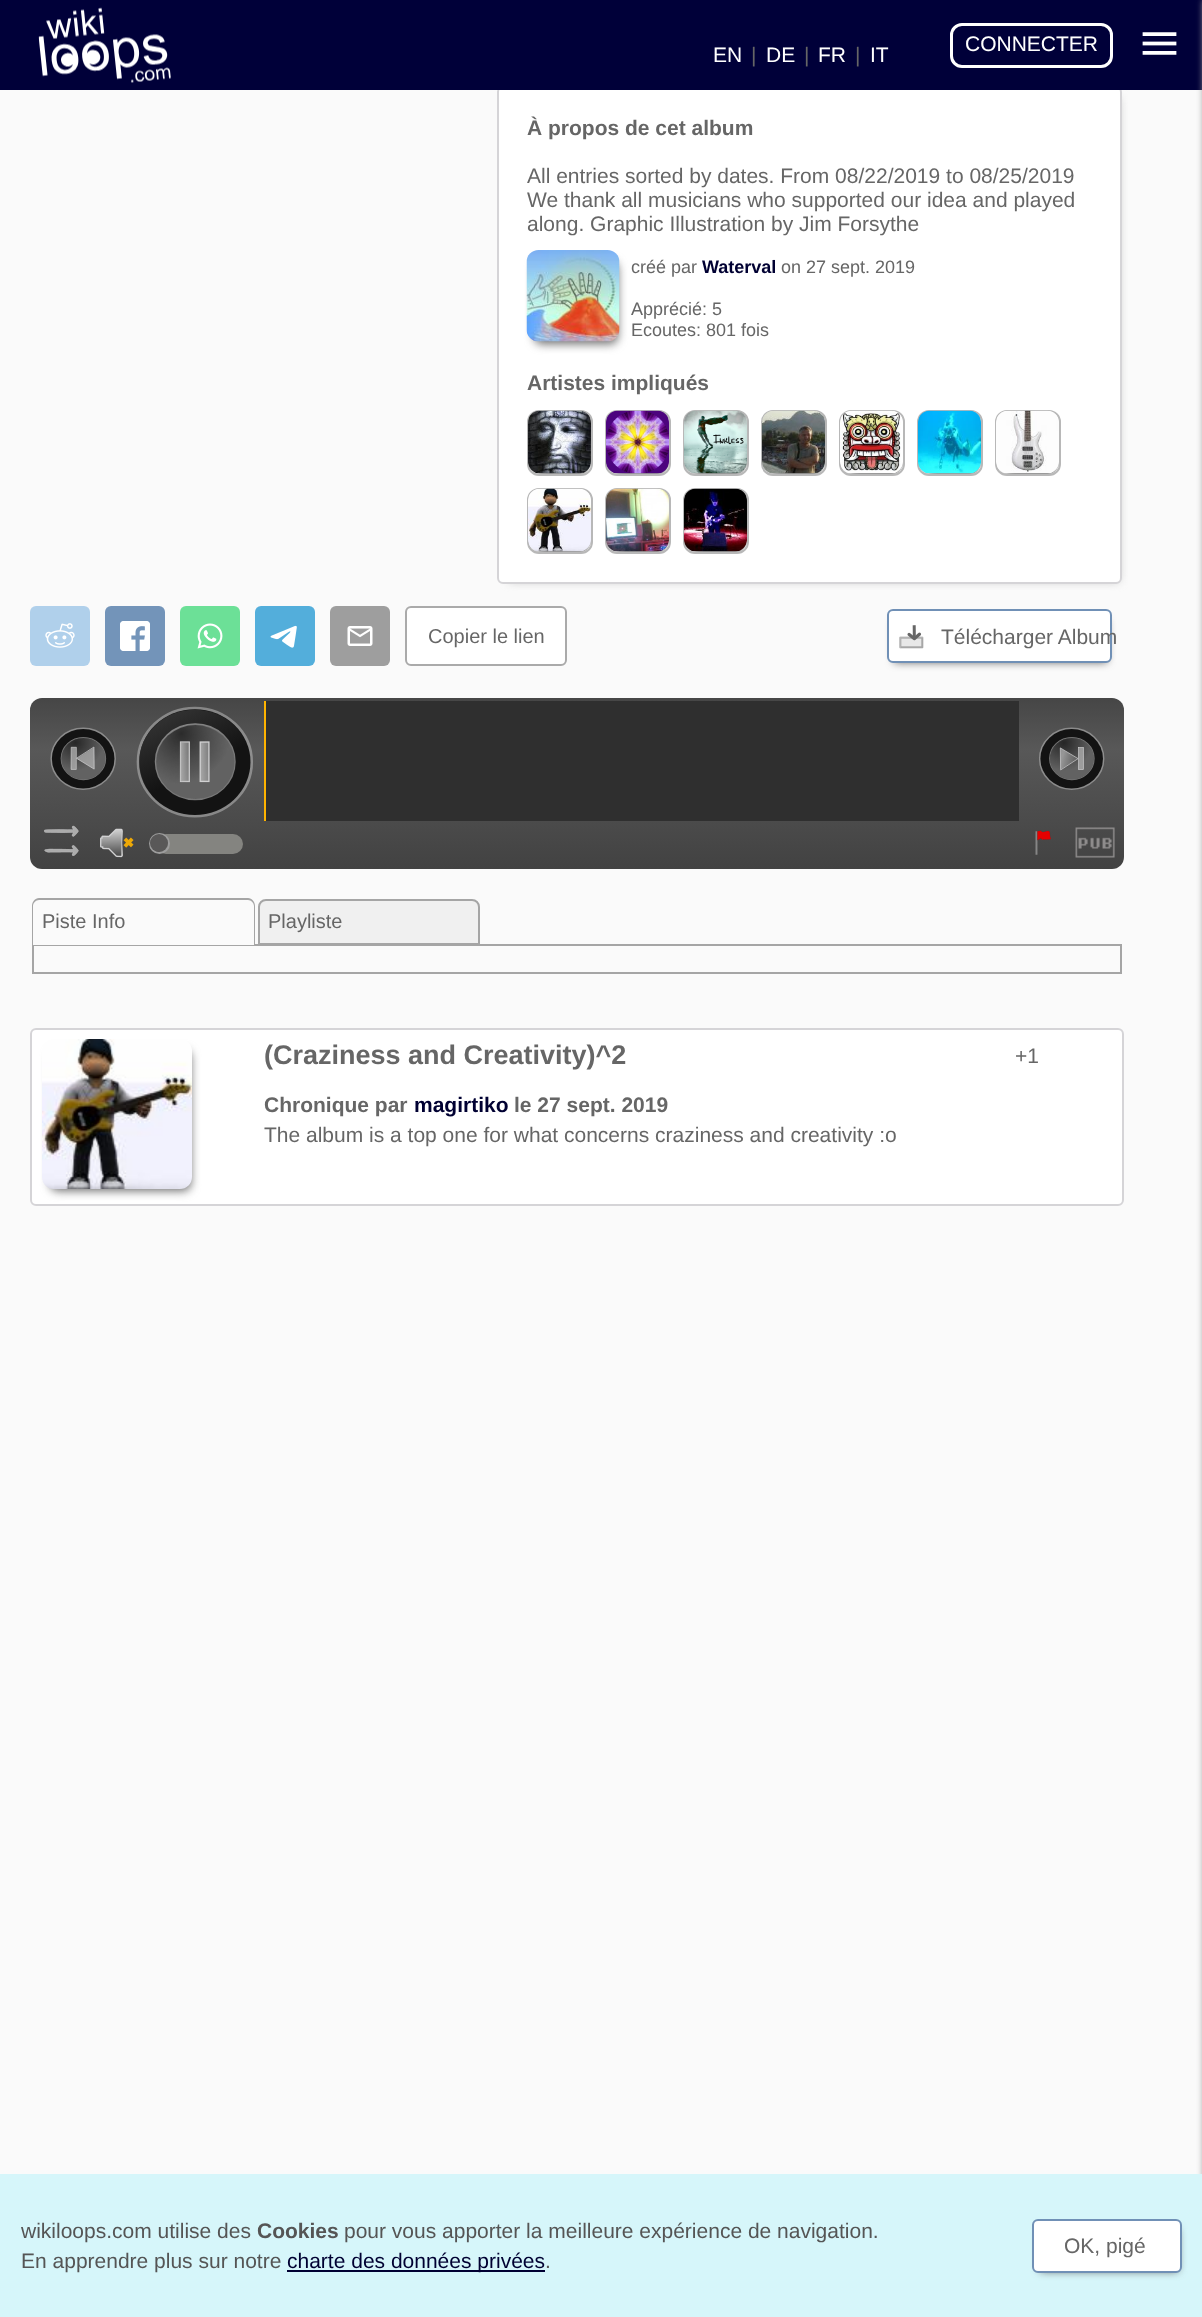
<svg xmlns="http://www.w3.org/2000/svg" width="1202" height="2317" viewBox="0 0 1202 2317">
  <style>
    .t1 { font: 21px Liberation Sans; fill: #fff; }
    .t2 { font: 21px Liberation Sans; fill: #666; }
    .t3 { font: bold 21px Liberation Sans; fill: #666; }
    .t4 { font: 18px Liberation Sans; fill: #666; }
    .t5 { font: bold 18px Liberation Sans; fill: #000032; }
    .t6 { font: 20px Liberation Sans; fill: #666; }
    .t7 { font: bold 27px Liberation Sans; fill: #666; }
    .t8 { font: bold 21px Liberation Sans; fill: #000032; }
    .t9 { font: 21px Liberation Sans; fill: #555; }
    .t10 { font: bold 21px Liberation Sans; fill: #555; }
    .t11 { font: 21px Liberation Sans; fill: #000032; }
  </style>
  <defs>
    <clipPath id="clip1"><rect x="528" y="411" width="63" height="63" rx="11"/></clipPath>
    <clipPath id="clip2"><rect x="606" y="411" width="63" height="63" rx="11"/></clipPath>
    <clipPath id="clip3"><rect x="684" y="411" width="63" height="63" rx="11"/></clipPath>
    <clipPath id="clip4"><rect x="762" y="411" width="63" height="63" rx="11"/></clipPath>
    <clipPath id="clip5"><rect x="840" y="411" width="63" height="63" rx="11"/></clipPath>
    <clipPath id="clip6"><rect x="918" y="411" width="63" height="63" rx="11"/></clipPath>
    <clipPath id="clip7"><rect x="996" y="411" width="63" height="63" rx="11"/></clipPath>
    <clipPath id="clip8"><rect x="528" y="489" width="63" height="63" rx="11"/></clipPath>
    <clipPath id="clip9"><rect x="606" y="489" width="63" height="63" rx="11"/></clipPath>
    <clipPath id="clip10"><rect x="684" y="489" width="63" height="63" rx="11"/></clipPath>
    <linearGradient id="g1" gradientUnits="userSpaceOnUse" x1="577" y1="869" x2="577" y2="698"><stop offset="0" stop-color="#424242"/><stop offset="0.7" stop-color="#585858"/><stop offset="1" stop-color="#464646"/></linearGradient>
  </defs>
  <rect width="100%" height="100%" fill="#fafafa"/>
  <rect x="509" y="98" width="610" height="483" fill="#bbb" filter="blur(5px)"/>
  <rect x="498" y="87" width="623" height="496" rx="5" fill="#fff" stroke="#d5d4d7" stroke-width="2"/>
  <rect x="0" y="0" width="1202" height="90" fill="#000039"/>
  <image x="38" y="7" width="133" height="76" href="images/1.png"/>
  <rect x="951.5" y="24.5" width="160" height="42" rx="10.5" fill="none" stroke="#fff" stroke-width="3"/>
  <text x="965" y="51" class="t1">CONNECTER</text>
  <image x="1142" y="32" width="35" height="23" href="images/2.png"/>
  <rect x="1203" y="0" width="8" height="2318" fill="#999" filter="blur(3px)"/>
  <text x="713" y="62" class="t1">EN</text>
  <text x="751" y="62" class="t2">|</text>
  <text x="766" y="62" class="t1">DE</text>
  <text x="804" y="62" class="t2">|</text>
  <text x="818" y="62" class="t1">FR</text>
  <text x="855" y="62" class="t2">|</text>
  <text x="870" y="62" class="t1">IT</text>
  <text x="527" y="135" class="t3">À propos de cet album</text>
  <text x="527" y="183" class="t2">All entries sorted by dates. From 08/22/2019 to 08/25/2019</text>
  <text x="527" y="207" class="t2">We thank all musicians who supported our idea and played</text>
  <text x="527" y="231" class="t2">along. Graphic Illustration by Jim Forsythe</text>
  <rect x="534" y="261" width="84" height="83" rx="8" fill="#6f6f6f" filter="blur(5px)"/>
  <image x="526" y="250" width="94" height="92" href="images/3.png"/>
  <text x="631" y="273" class="t4">créé par</text>
  <text x="702" y="273" class="t5">Waterval</text>
  <text x="781" y="273" class="t4">on 27 sept. 2019</text>
  <text x="631" y="315" class="t4">Apprécié: 5</text>
  <text x="631" y="336" class="t4">Ecoutes: 801 fois</text>
  <text x="527" y="390" class="t3">Artistes impliqués</text>
  <rect x="528" y="411" width="64" height="64" rx="11" fill="none" stroke="#b8b8b8" stroke-width="2"/>
  <g clip-path="url(#clip1)">
    <rect x="536" y="422" width="54" height="54" rx="8" fill="#6f6f6f" filter="blur(5px)"/>
  </g>
  <image x="528" y="410" width="63" height="64" href="images/4.png"/>
  <rect x="606" y="411" width="64" height="64" rx="11" fill="none" stroke="#b8b8b8" stroke-width="2"/>
  <g clip-path="url(#clip2)">
    <rect x="614" y="422" width="54" height="54" rx="8" fill="#6f6f6f" filter="blur(5px)"/>
  </g>
  <image x="606" y="410" width="63" height="64" href="images/5.png"/>
  <rect x="684" y="411" width="64" height="64" rx="11" fill="none" stroke="#b8b8b8" stroke-width="2"/>
  <g clip-path="url(#clip3)">
    <rect x="692" y="422" width="54" height="54" rx="8" fill="#6f6f6f" filter="blur(5px)"/>
  </g>
  <image x="684" y="410" width="63" height="64" href="images/6.png"/>
  <rect x="762" y="411" width="64" height="64" rx="11" fill="none" stroke="#b8b8b8" stroke-width="2"/>
  <g clip-path="url(#clip4)">
    <rect x="770" y="422" width="54" height="54" rx="8" fill="#6f6f6f" filter="blur(5px)"/>
  </g>
  <image x="762" y="410" width="63" height="64" href="images/7.png"/>
  <rect x="840" y="411" width="64" height="64" rx="11" fill="none" stroke="#b8b8b8" stroke-width="2"/>
  <g clip-path="url(#clip5)">
    <rect x="848" y="422" width="54" height="54" rx="8" fill="#6f6f6f" filter="blur(5px)"/>
  </g>
  <image x="840" y="410" width="63" height="63" href="images/8.png"/>
  <rect x="918" y="411" width="64" height="64" rx="11" fill="none" stroke="#b8b8b8" stroke-width="2"/>
  <g clip-path="url(#clip6)">
    <rect x="926" y="422" width="54" height="54" rx="8" fill="#6f6f6f" filter="blur(5px)"/>
  </g>
  <image x="918" y="410" width="63" height="64" href="images/9.png"/>
  <rect x="996" y="411" width="64" height="64" rx="11" fill="none" stroke="#b8b8b8" stroke-width="2"/>
  <g clip-path="url(#clip7)">
    <rect x="1004" y="422" width="54" height="54" rx="8" fill="#6f6f6f" filter="blur(5px)"/>
  </g>
  <image x="996" y="410" width="63" height="63" href="images/10.png"/>
  <rect x="528" y="489" width="64" height="64" rx="11" fill="none" stroke="#b8b8b8" stroke-width="2"/>
  <g clip-path="url(#clip8)">
    <rect x="536" y="500" width="54" height="54" rx="8" fill="#6f6f6f" filter="blur(5px)"/>
  </g>
  <image x="528" y="488" width="63" height="64" href="images/11.png"/>
  <rect x="606" y="489" width="64" height="64" rx="11" fill="none" stroke="#b8b8b8" stroke-width="2"/>
  <g clip-path="url(#clip9)">
    <rect x="614" y="500" width="54" height="54" rx="8" fill="#6f6f6f" filter="blur(5px)"/>
  </g>
  <image x="606" y="488" width="63" height="64" href="images/12.png"/>
  <rect x="684" y="489" width="64" height="64" rx="11" fill="none" stroke="#b8b8b8" stroke-width="2"/>
  <g clip-path="url(#clip10)">
    <rect x="692" y="500" width="54" height="54" rx="8" fill="#6f6f6f" filter="blur(5px)"/>
  </g>
  <image x="684" y="488" width="63" height="64" href="images/13.png"/>
  <rect x="30" y="606" width="60" height="60" rx="6" fill="#b0d0eb"/>
  <image x="45" y="623" width="30" height="25" href="images/14.png"/>
  <rect x="105" y="606" width="60" height="60" rx="6" fill="#7394b9"/>
  <image x="120" y="621" width="30" height="30" href="images/15.png"/>
  <rect x="180" y="606" width="60" height="60" rx="6" fill="#6ce097"/>
  <image x="197" y="623" width="26" height="26" href="images/16.png"/>
  <rect x="255" y="606" width="60" height="60" rx="6" fill="#53aedb"/>
  <image x="270" y="625" width="27" height="23" href="images/17.png"/>
  <rect x="330" y="606" width="60" height="60" rx="6" fill="#9e9e9e"/>
  <image x="347" y="626" width="26" height="20" href="images/18.png"/>
  <rect x="406" y="607" width="160" height="58" rx="5" fill="#fff" stroke="#aaa" stroke-width="2"/>
  <text x="428" y="643" class="t6">Copier le lien</text>
  <rect x="894" y="620" width="213" height="42" fill="#555" filter="blur(4.5px)"/>
  <rect x="888" y="610" width="223" height="52" rx="5" fill="#fff" stroke="#7090b6" stroke-width="2"/>
  <image x="899" y="625" width="25" height="24" href="images/19.png"/>
  <text x="941" y="644" class="t2">Télécharger Album</text>
  <rect x="30" y="698" width="1094" height="171" rx="12" fill="url(#g1)"/>
  <image x="50" y="727" width="66" height="63" href="images/20.png"/>
  <image x="136" y="706" width="117" height="112" href="images/21.png"/>
  <rect x="266" y="701" width="753" height="120" fill="#2f2f2f"/>
  <rect x="264" y="701" width="2" height="120" fill="#ffb300"/>
  <image x="1039" y="727" width="66" height="63" href="images/22.png"/>
  <image x="44" y="825" width="35" height="31" href="images/23.png"/>
  <image x="100" y="828" width="34" height="30" href="images/24.png"/>
  <rect x="156" y="834" width="87" height="20" rx="10" fill="#848480"/>
  <circle cx="159.5" cy="843.5" r="9.5" fill="none" stroke="#9d9d9d" stroke-width="2"/>
  <circle cx="159" cy="843" r="9" fill="#595858"/>
  <image x="1035" y="830" width="16" height="25" href="images/25.png"/>
  <image x="1075" y="827" width="40" height="31" href="images/26.png"/>
  <rect x="33" y="945" width="1088" height="28" fill="none" stroke="#a5a5a5" stroke-width="2"/>
  <path d="M39 900H248C251.5 900 254 902.5 254 906V945H33V906C33 902.5 35.5 900 39 900Z" fill="#fafafa"/>
  <path d="M39 898H248C252 898 255 902 255 906V945H32V906C32 902 35 898 39 898ZM39 900H248C251 900 254 903 254 906V945H33V906C33 903 36 900 39 900Z" fill="#a5a5a5" fill-rule="evenodd"/>
  <text x="42" y="928" class="t6">Piste Info</text>
  <path d="M266 900H472C476 900 479 903 479 907V944H259V907C259 903 262 900 266 900Z" fill="#f0f0f0" stroke="#a5a5a5" stroke-width="2"/>
  <text x="268" y="928" class="t6">Playliste</text>
  <rect x="31" y="1029" width="1092" height="176" rx="5" fill="#fff" stroke="#d5d4d7" stroke-width="2"/>
  <rect x="50" y="1050" width="141" height="141" rx="8" fill="#6f6f6f" filter="blur(5px)"/>
  <image x="42" y="1039" width="150" height="150" href="images/27.png"/>
  <text x="264" y="1064" class="t7">(Craziness and Creativity)^2</text>
  <text x="1015" y="1063" class="t2">+1</text>
  <text x="264" y="1112" class="t3">Chronique par</text>
  <text x="414" y="1112" class="t8">magirtiko</text>
  <text x="514" y="1112" class="t3">le 27 sept. 2019</text>
  <text x="264" y="1142" class="t2">The album is a top one for what concerns craziness and creativity :o</text>
  <rect x="0" y="2174" width="1202" height="143" fill="#d6f6fa"/>
  <text x="21" y="2238" class="t9">wikiloops.com utilise des</text>
  <text x="257" y="2238" class="t10">Cookies</text>
  <text x="344" y="2238" class="t9">pour vous apporter la meilleure expérience de navigation.</text>
  <text x="21" y="2268" class="t9">En apprendre plus sur notre</text>
  <rect x="287" y="2270" width="258" height="2" fill="#000032"/>
  <text x="287" y="2268" class="t11">charte des données privées</text>
  <text x="545" y="2268" class="t9">.</text>
  <rect x="1040" y="2229" width="138" height="42" fill="#555" filter="blur(4.5px)"/>
  <rect x="1033" y="2220" width="148" height="52" rx="5" fill="#fff" stroke="#7090b6" stroke-width="2"/>
  <text x="1064" y="2253" class="t2">OK, pigé</text>
</svg>
